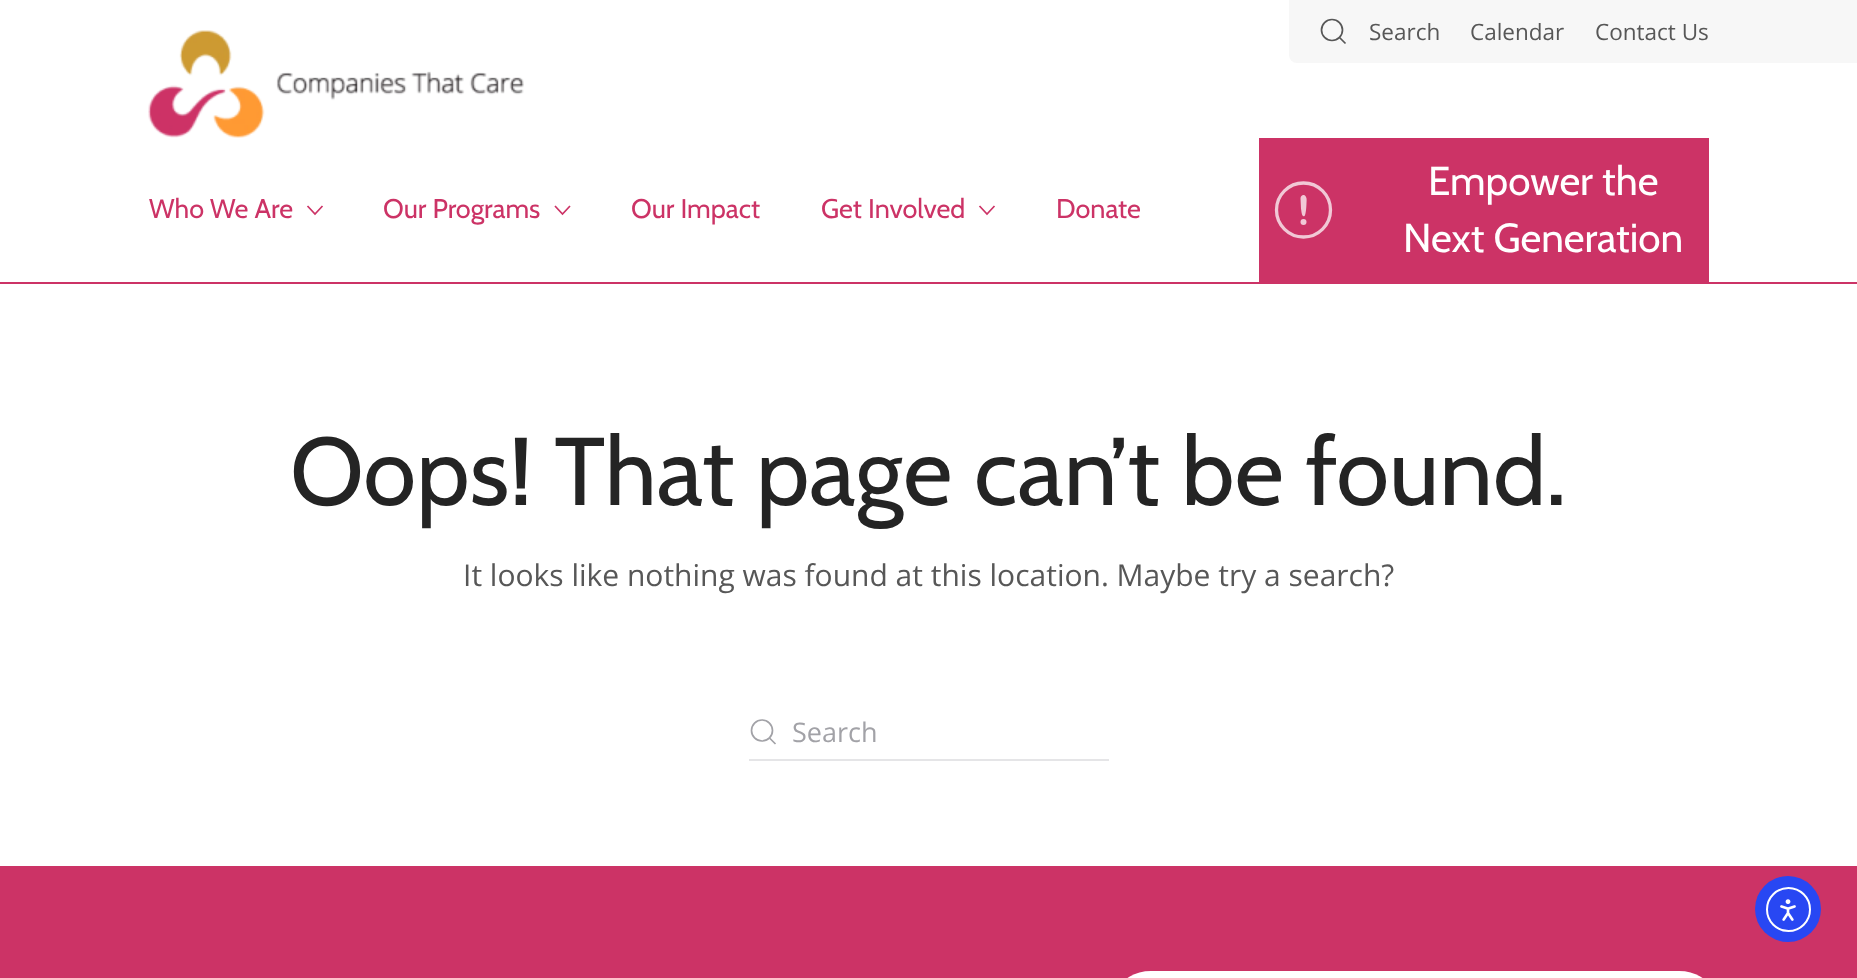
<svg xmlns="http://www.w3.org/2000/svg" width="1857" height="978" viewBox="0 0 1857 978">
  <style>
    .t1 { font: 22.5px Open Sans; fill: #575757; }
    .t2 { font: 27px Cabin; fill: #c36; }
    .t3 { font: 40.5px Cabin; fill: #fff; }
    .t4 { font: 96px Cabin; fill: #242424; }
    .t5 { font: 30px Open Sans; fill: #575757; }
    .t6 { font: 27px Open Sans; fill: #a2a2a7; }
  </style>
  <rect width="100%" height="100%" fill="#fff"/>
  <image x="148" y="30" width="376" height="108" href="images/1.png"/>
  <rect x="1289" y="-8" width="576" height="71" rx="8" fill="#f7f7f7"/>
  <circle cx="1332" cy="30" r="10.5" fill="none" stroke="#575757" stroke-width="1.7"/>
  <path d="M1339.5 37.5L1345.5 43.5Z" fill="none" stroke="#575757" stroke-width="1.7"/>
  <text x="1369" y="40" class="t1">Search</text>
  <text x="1470" y="40" class="t1">Calendar</text>
  <text x="1595" y="40" class="t1">Contact Us</text>
  <rect x="0" y="282" width="1857" height="2" fill="#c36"/>
  <text x="149" y="218" class="t2">Who We Are</text>
  <path d="M307.5 206L315 214L322.5 206" fill="none" stroke="#c36" stroke-width="1.7"/>
  <text x="383" y="218" class="t2">Our Programs</text>
  <path d="M555 206L562.5 214L570 206" fill="none" stroke="#c36" stroke-width="1.7"/>
  <text x="631" y="218" class="t2">Our Impact</text>
  <text x="821" y="218" class="t2">Get Involved</text>
  <path d="M979.5 206L987 214L994.5 206" fill="none" stroke="#c36" stroke-width="1.7"/>
  <text x="1056" y="218" class="t2">Donate</text>
  <rect x="1259" y="138" width="450" height="144" fill="#c36"/>
  <circle cx="1303.5" cy="222" r="3" fill="#f1c8d6"/>
  <circle cx="1303.5" cy="210" r="27" fill="none" stroke="#f1c8d6" stroke-width="3.3"/>
  <path d="M1306.5 203C1306.5 204.5 1306 215 1304.5 216C1301.5 217.5 1301.5 210 1301 209C1301 205.5 1300.5 202 1300.5 198.5C1300.5 195 1304.5 193.5 1306 197C1307 198.5 1306.5 201.5 1306.5 203Z" fill="#f1c8d6"/>
  <text x="1428" y="195" class="t3">Empower the</text>
  <text x="1403" y="252" class="t3">Next Generation</text>
  <text x="290" y="505" class="t4">Oops! That page can’t be found.</text>
  <text x="463" y="586" class="t5">It looks like nothing was found at this location. Maybe try a search?</text>
  <circle cx="762" cy="730.5" r="10.5" fill="none" stroke="#a2a2a7" stroke-width="1.7"/>
  <path d="M769.5 738L775.5 744Z" fill="none" stroke="#a2a2a7" stroke-width="1.7"/>
  <rect x="749" y="759" width="360" height="2" fill="#e5e5e7"/>
  <text x="792" y="742" class="t6">Search</text>
  <rect x="0" y="866" width="1857" height="112" fill="#c36"/>
  <rect x="1121" y="971" width="588" height="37" rx="30" fill="#fff"/>
  <circle cx="1788" cy="909" r="33" fill="#2847f3"/>
  <circle cx="1788.5" cy="909.5" r="21.5" fill="none" stroke="#fff" stroke-width="2"/>
  <image x="1780" y="899" width="16" height="22" href="images/2.png"/>
</svg>
